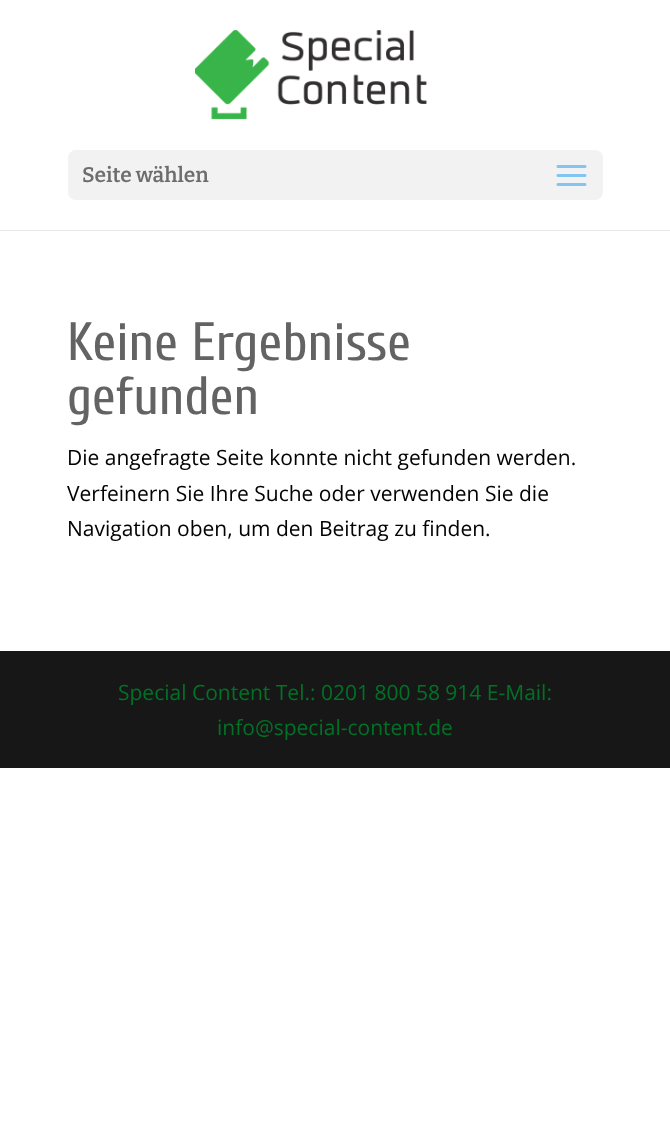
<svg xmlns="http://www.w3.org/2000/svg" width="670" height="1123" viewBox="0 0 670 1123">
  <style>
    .t1 { font: 600 21px Bitter; fill: #6d6d6d; }
    .t2 { font: 54px Cuprum; fill: #636363; }
    .t3 { font: 21px Open Sans; fill: #020202; }
    .t4 { font: 21px Open Sans; fill: #007226; }
  </style>
  <rect width="100%" height="100%" fill="#fff"/>
  <path d="M0 230V231H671V2H670V230Z" fill="#e6e6e6"/>
  <image x="195" y="30" width="232" height="90" href="images/1.png"/>
  <rect x="68" y="150" width="535" height="50" rx="8" fill="#f2f2f2"/>
  <text x="82" y="182" class="t1">Seite wählen</text>
  <image x="556" y="165" width="31" height="21" href="images/2.png"/>
  <text x="67" y="360" class="t2">Keine Ergebnisse</text>
  <text x="67" y="414" class="t2">gefunden</text>
  <text x="67" y="465" class="t3">Die angefragte Seite konnte nicht gefunden werden.</text>
  <text x="67" y="501" class="t3">Verfeinern Sie Ihre Suche oder verwenden Sie die</text>
  <text x="67" y="536" class="t3">Navigation oben, um den Beitrag zu finden.</text>
  <rect x="0" y="651" width="670" height="117" fill="#171717"/>
  <text x="118" y="700" class="t4">Special Content Tel.: 0201 800 58 914 E-Mail:</text>
  <text x="217" y="735" class="t4">info@special-content.de</text>
</svg>
